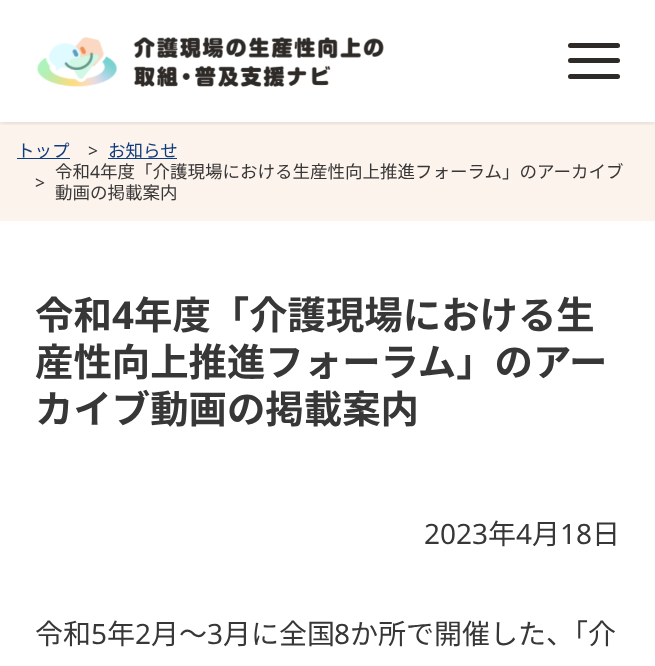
<svg xmlns="http://www.w3.org/2000/svg" width="655" height="666" viewBox="0 0 655 666">
  <style>
    .t1 { font: 17.5px Noto Sans CJK JP; fill: #103c7d; }
    .t2 { font: 17.5px Noto Sans; fill: #383737; }
    .t3 { font: 17.5px Noto Sans CJK JP; fill: #383737; }
    .t4 { font: bold 38.4px Noto Sans CJK JP; fill: #383737; }
    .t5 { font: bold 38.4px Noto Sans; fill: #383737; }
    .t6 { font: 28px Noto Sans; fill: #383737; }
    .t7 { font: 28px Noto Sans CJK JP; fill: #383737; }
  </style>
  <defs>
    <clipPath id="clip1"><rect x="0" y="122" width="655" height="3"/></clipPath>
  </defs>
  <rect width="100%" height="100%" fill="#fff"/>
  <rect x="0" y="122" width="655" height="99" fill="#fcf3ed"/>
  <g clip-path="url(#clip1)">
    <rect x="0" y="0" width="655" height="122" fill="#00000029" filter="blur(3px)"/>
  </g>
  <image x="37" y="37" width="347" height="50" href="images/1.png"/>
  <rect x="568" y="43" width="52" height="5" rx="2.5" fill="#2e2a27"/>
  <rect x="568" y="58" width="52" height="5" rx="2.5" fill="#2e2a27"/>
  <rect x="568" y="74" width="52" height="5" rx="2.5" fill="#2e2a27"/>
  <rect x="17" y="158" width="53" height="1" fill="#103c7d"/>
  <text x="17" y="157" class="t1">トップ</text>
  <text x="88" y="157" class="t2">&gt;</text>
  <rect x="108" y="158" width="69" height="1" fill="#103c7d"/>
  <text x="108" y="157" class="t1">お知らせ</text>
  <text x="55" y="178" class="t3">令和</text>
  <text x="90" y="178" class="t2">4</text>
  <text x="100" y="178" class="t3">年度「介護現場における生産性向上推進フォーラム」のアーカイブ</text>
  <text x="35" y="189" class="t2">&gt;</text>
  <text x="55" y="199" class="t3">動画の掲載案内</text>
  <text x="35" y="329" class="t4">令和</text>
  <text x="112" y="329" class="t5">4</text>
  <text x="134" y="329" class="t4">年度「介護現場における生</text>
  <text x="35" y="376" class="t4">産性向上推進フォーラム」のアー</text>
  <text x="35" y="423" class="t4">カイブ動画の掲載案内</text>
  <text x="424" y="544" class="t6">2023</text>
  <text x="488" y="544" class="t7">年</text>
  <text x="516" y="544" class="t6">4</text>
  <text x="532" y="544" class="t7">月</text>
  <text x="560" y="544" class="t6">18</text>
  <text x="592" y="544" class="t7">日</text>
  <text x="35" y="644" class="t7">令和</text>
  <text x="91" y="644" class="t6">5</text>
  <text x="107" y="644" class="t7">年</text>
  <text x="135" y="644" class="t6">2</text>
  <text x="151" y="644" class="t7">月～</text>
  <text x="207" y="644" class="t6">3</text>
  <text x="223" y="644" class="t7">月に全国</text>
  <text x="334" y="644" class="t6">8</text>
  <text x="350" y="644" class="t7">か所で開催した、「介</text>
</svg>
